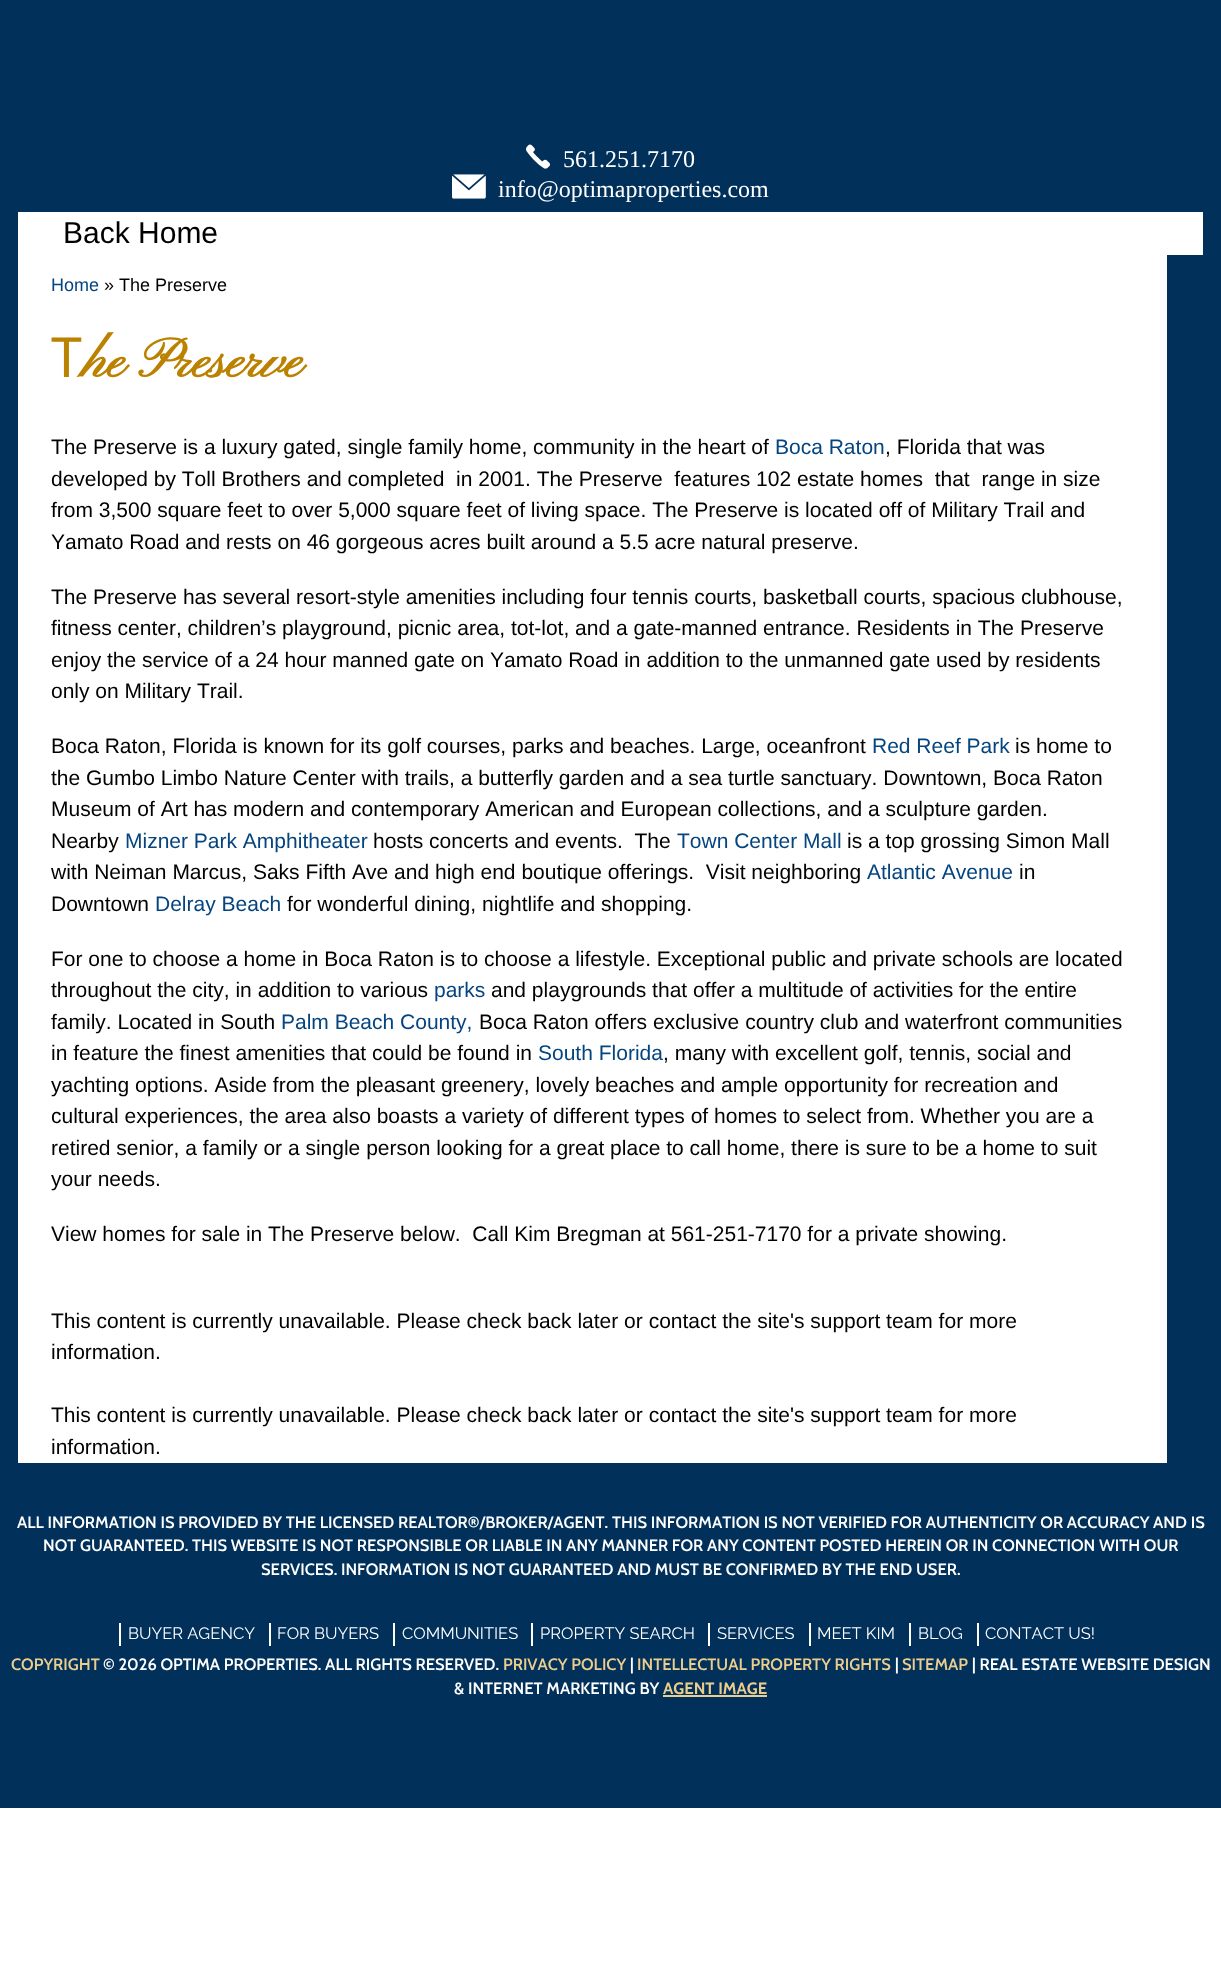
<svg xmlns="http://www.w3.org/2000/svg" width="1221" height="1967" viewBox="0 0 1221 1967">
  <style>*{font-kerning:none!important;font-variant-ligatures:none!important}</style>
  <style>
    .t1 { font: 24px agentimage; fill: #fff; }
    .t2 { font: 24px Liberation Serif; fill: #fff; }
    .t3 { font: 30px Liberation Sans; fill: #000; }
    .t4 { font: 18px Liberation Sans; fill: #04447f; }
    .t5 { font: 18px Liberation Sans; fill: #000; }
    .t6 { font: 55.5px Noto Sans; fill: #bb8100; }
    .t7 { font: bold 55.5px Pinyon Script; fill: #bb8100; }
    .t8 { font: 21px Liberation Sans; fill: #000; }
    .t9 { font: 21px Liberation Sans; fill: #04447f; }
    .t10 { font: 600 16.5px Cabin; fill: #fff; }
    .t11 { font: 16.5px Raleway; fill: #fff; }
    .t12 { font: 600 16.5px Cabin; fill: #ebce8e; }
    .t13 { font: bold 16.5px Cabin; fill: #ebce8e; }
  </style>
  <rect width="100%" height="100%" fill="#fff"/>
  <rect x="0" y="0" width="1221" height="1808" fill="#01305a"/>
  <text x="526" y="167" class="t1">򰁩</text>
  <text x="563" y="167" class="t2">561.251.7170</text>
  <text x="452" y="197" class="t1">򰄡</text>
  <text x="498" y="197" class="t2">info@optimaproperties.com</text>
  <rect x="18" y="212" width="1185" height="43" fill="#fff"/>
  <text x="63" y="243" class="t3">Back Home</text>
  <rect x="18" y="255" width="1149" height="1208" fill="#fff"/>
  <text x="51" y="291" class="t4">Home</text>
  <text x="104" y="291" class="t5">» The Preserve</text>
  <text x="51" y="377" class="t6">T</text>
  <text x="82" y="377" class="t7">he Preserve</text>
  <text x="51" y="454" class="t8">The Preserve is a luxury gated, single family home, community in the heart of</text>
  <text x="775" y="454" class="t9">Boca Raton</text>
  <text x="885" y="454" class="t8">, Florida that was</text>
  <text x="51" y="486" class="t8" xml:space="preserve">developed by Toll Brothers and completed  in 2001. The Preserve  features 102 estate homes  that  range in size</text>
  <text x="51" y="517" class="t8">from 3,500 square feet to over 5,000 square feet of living space. The Preserve is located off of Military Trail and</text>
  <text x="51" y="549" class="t8">Yamato Road and rests on 46 gorgeous acres built around a 5.5 acre natural preserve.</text>
  <text x="51" y="604" class="t8">The Preserve has several resort-style amenities including four tennis courts, basketball courts, spacious clubhouse,</text>
  <text x="51" y="635" class="t8">fitness center, children’s playground, picnic area, tot-lot, and a gate-manned entrance. Residents in The Preserve</text>
  <text x="51" y="667" class="t8">enjoy the service of a 24 hour manned gate on Yamato Road in addition to the unmanned gate used by residents</text>
  <text x="51" y="698" class="t8">only on Military Trail.</text>
  <text x="51" y="753" class="t8">Boca Raton, Florida is known for its golf courses, parks and beaches. Large, oceanfront</text>
  <text x="872" y="753" class="t9">Red Reef Park</text>
  <text x="1015" y="753" class="t8">is home to</text>
  <text x="51" y="785" class="t8">the Gumbo Limbo Nature Center with trails, a butterfly garden and a sea turtle sanctuary. Downtown, Boca Raton</text>
  <text x="51" y="816" class="t8">Museum of Art has modern and contemporary American and European collections, and a sculpture garden.</text>
  <text x="51" y="848" class="t8">Nearby</text>
  <text x="125" y="848" class="t9">Mizner Park Amphitheater</text>
  <text x="373" y="848" class="t8" xml:space="preserve">hosts concerts and events.  The</text>
  <text x="677" y="848" class="t9">Town Center Mall</text>
  <text x="847" y="848" class="t8">is a top grossing Simon Mall</text>
  <text x="51" y="879" class="t8" xml:space="preserve">with Neiman Marcus, Saks Fifth Ave and high end boutique offerings.  Visit neighboring</text>
  <text x="867" y="879" class="t9">Atlantic Avenue</text>
  <text x="1019" y="879" class="t8">in</text>
  <text x="51" y="911" class="t8">Downtown</text>
  <text x="155" y="911" class="t9">Delray Beach</text>
  <text x="287" y="911" class="t8">for wonderful dining, nightlife and shopping.</text>
  <text x="51" y="966" class="t8">For one to choose a home in Boca Raton is to choose a lifestyle. Exceptional public and private schools are located</text>
  <text x="51" y="997" class="t8">throughout the city, in addition to various</text>
  <text x="434" y="997" class="t9">parks</text>
  <text x="491" y="997" class="t8">and playgrounds that offer a multitude of activities for the entire</text>
  <text x="51" y="1029" class="t8">family. Located in South</text>
  <text x="281" y="1029" class="t9">Palm Beach County,</text>
  <text x="479" y="1029" class="t8">Boca Raton offers exclusive country club and waterfront communities</text>
  <text x="51" y="1060" class="t8">in feature the finest amenities that could be found in</text>
  <text x="538" y="1060" class="t9">South Florida</text>
  <text x="663" y="1060" class="t8">, many with excellent golf, tennis, social and</text>
  <text x="51" y="1092" class="t8">yachting options. Aside from the pleasant greenery, lovely beaches and ample opportunity for recreation and</text>
  <text x="51" y="1123" class="t8">cultural experiences, the area also boasts a variety of different types of homes to select from. Whether you are a</text>
  <text x="51" y="1155" class="t8">retired senior, a family or a single person looking for a great place to call home, there is sure to be a home to suit</text>
  <text x="51" y="1186" class="t8">your needs.</text>
  <text x="51" y="1241" class="t8" xml:space="preserve">View homes for sale in The Preserve below.  Call Kim Bregman at 561-251-7170 for a private showing.</text>
  <text x="51" y="1328" class="t8">This content is currently unavailable. Please check back later or contact the site's support team for more</text>
  <text x="51" y="1359" class="t8">information.</text>
  <text x="51" y="1422" class="t8">This content is currently unavailable. Please check back later or contact the site's support team for more</text>
  <text x="51" y="1454" class="t8">information.</text>
  <text x="17" y="1528" class="t10">ALL INFORMATION IS PROVIDED BY THE LICENSED REALTOR®/BROKER/AGENT.</text>
  <text x="612" y="1528" class="t10">THIS INFORMATION IS NOT VERIFIED FOR AUTHENTICITY OR ACCURACY AND IS</text>
  <text x="43" y="1551" class="t10">NOT GUARANTEED. THIS WEBSITE IS NOT RESPONSIBLE OR LIABLE IN ANY MANNER FOR ANY CONTENT POSTED HEREIN OR IN CONNECTION WITH OUR</text>
  <text x="261" y="1575" class="t10">SERVICES. INFORMATION IS NOT GUARANTEED AND MUST BE CONFIRMED BY THE END USER.</text>
  <rect x="119" y="1623" width="2" height="23" fill="#fff"/>
  <text x="128" y="1639" class="t11">BUYER AGENCY</text>
  <rect x="269" y="1623" width="2" height="23" fill="#fff"/>
  <text x="277" y="1639" class="t11">FOR BUYERS</text>
  <rect x="393" y="1623" width="2" height="23" fill="#fff"/>
  <text x="402" y="1639" class="t11">COMMUNITIES</text>
  <rect x="531" y="1623" width="2" height="23" fill="#fff"/>
  <text x="540" y="1639" class="t11">PROPERTY SEARCH</text>
  <rect x="708" y="1623" width="2" height="23" fill="#fff"/>
  <text x="717" y="1639" class="t11">SERVICES</text>
  <rect x="809" y="1623" width="2" height="23" fill="#fff"/>
  <text x="817" y="1639" class="t11">MEET KIM</text>
  <rect x="909" y="1623" width="2" height="23" fill="#fff"/>
  <text x="918" y="1639" class="t11">BLOG</text>
  <rect x="977" y="1623" width="2" height="23" fill="#fff"/>
  <text x="985" y="1639" class="t11">CONTACT US!</text>
  <text x="11" y="1670" class="t12">COPYRIGHT</text>
  <text x="103" y="1670" class="t10">© 2026 OPTIMA PROPERTIES. ALL RIGHTS RESERVED.</text>
  <text x="503" y="1670" class="t12">PRIVACY POLICY</text>
  <text x="630" y="1670" class="t10">|</text>
  <text x="637" y="1670" class="t12">INTELLECTUAL PROPERTY RIGHTS</text>
  <text x="895" y="1670" class="t10">|</text>
  <text x="902" y="1670" class="t12">SITEMAP</text>
  <text x="972" y="1670" class="t10">| REAL ESTATE WEBSITE DESIGN</text>
  <text x="454" y="1694" class="t10">&amp; INTERNET MARKETING BY</text>
  <text x="663" y="1694" class="t13">AGENT IMAGE</text>
  <rect x="663" y="1695" width="104" height="2" fill="#ebce8e"/>
</svg>
